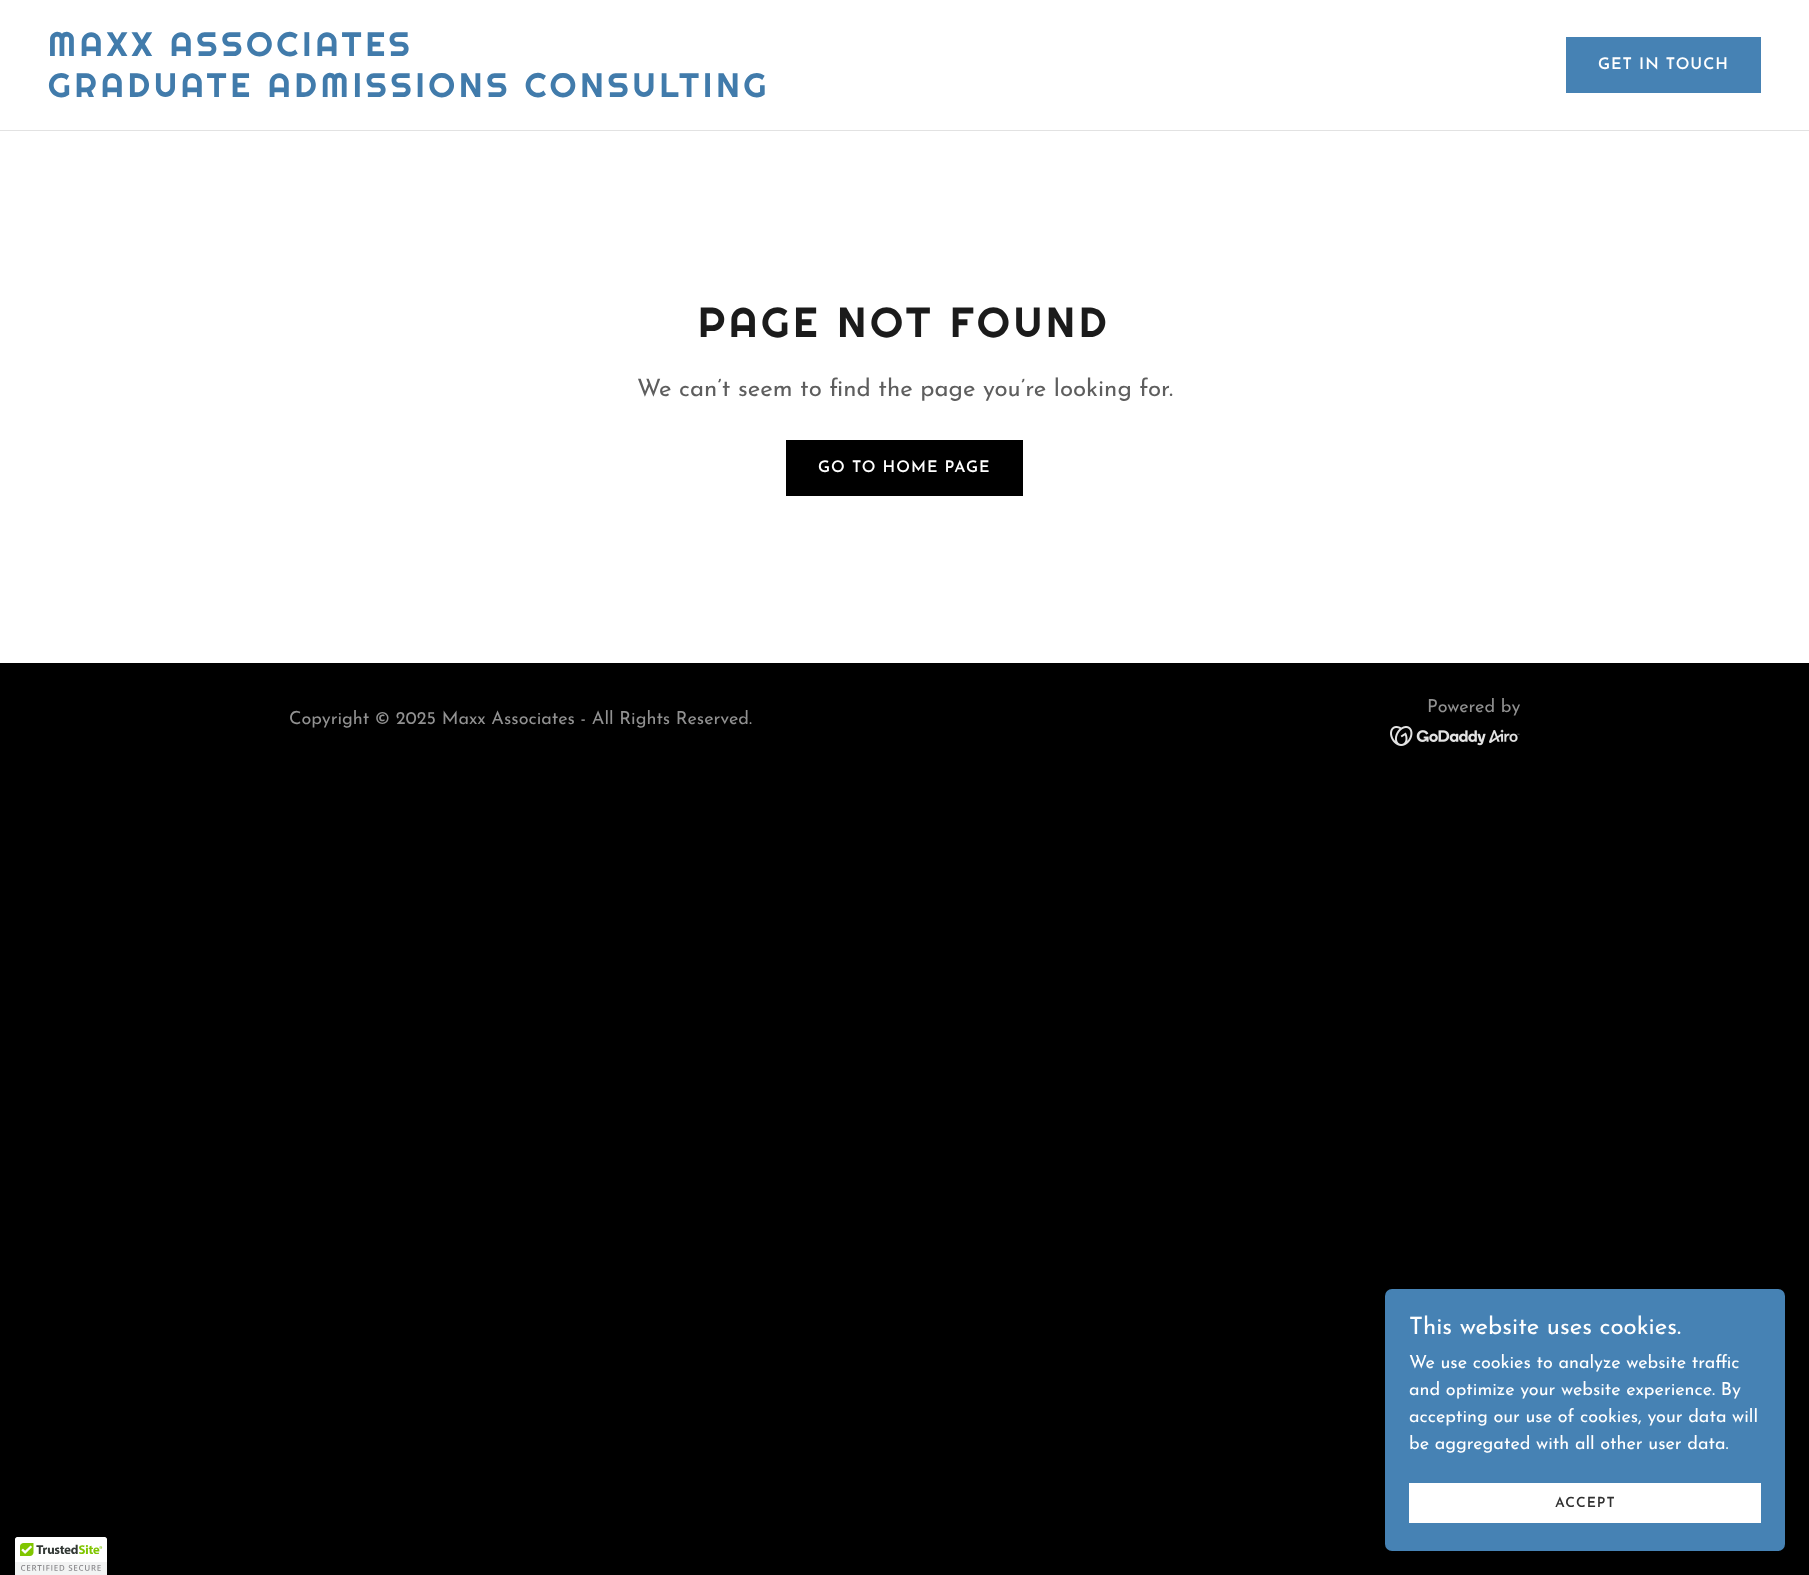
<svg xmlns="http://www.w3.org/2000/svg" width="1809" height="1575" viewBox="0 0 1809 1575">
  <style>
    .t1 { font: 34px Righteous; letter-spacing: 4px; fill: #417bab; }
    .t2 { font: 600 16px Josefin Sans; letter-spacing: 1px; fill: #fff; }
    .t3 { font: 42px Righteous; letter-spacing: 4px; fill: #1b1b1b; }
    .t4 { font: 24px Josefin Sans; fill: #5e5e5e; }
    .t5 { font: 18px Josefin Sans; fill: #919191; }
    .t6 { font: 24px Josefin Sans; fill: #fff; }
    .t7 { font: 18px Josefin Sans; fill: #fff; }
    .t8 { font: 600 14px Josefin Sans; letter-spacing: 1px; fill: #303030; }
  </style>
  <rect width="100%" height="100%" fill="#000"/>
  <rect x="0" y="0" width="1809" height="130" fill="#fff"/>
  <text x="48" y="56" class="t1">MAXX ASSOCIATES</text>
  <text x="48" y="97" class="t1">GRADUATE ADMISSIONS CONSULTING</text>
  <rect x="1566" y="37" width="195" height="56" fill="#4682b4"/>
  <text x="1598" y="69" class="t2">GET IN TOUCH</text>
  <rect x="0" y="130" width="1809" height="1" fill="#e2e2e2"/>
  <rect x="0" y="131" width="1809" height="532" fill="#fff"/>
  <text x="698" y="337" class="t3">PAGE NOT FOUND</text>
  <text x="637" y="396" class="t4">We can’t seem to find the page you’re looking for.</text>
  <rect x="786" y="440" width="237" height="56" fill="#000"/>
  <text x="818" y="472" class="t2">GO TO HOME PAGE</text>
  <text x="1427" y="712" class="t5">Powered by</text>
  <image x="1390" y="726" width="130" height="20" href="images/1.png"/>
  <text x="289" y="724" class="t5">Copyright © 2025 Maxx Associates - All Rights Reserved.</text>
  <rect x="1385" y="1289" width="400" height="262" rx="7" fill="#4682b4"/>
  <text x="1409" y="1334" class="t6">This website uses cookies.</text>
  <text x="1409" y="1368" class="t7">We use cookies to analyze website traffic</text>
  <text x="1409" y="1395" class="t7">and optimize your website experience. By</text>
  <text x="1409" y="1422" class="t7">accepting our use of cookies, your data will</text>
  <text x="1409" y="1449" class="t7">be aggregated with all other user data.</text>
  <rect x="1409" y="1483" width="352" height="40" fill="#fff"/>
  <text x="1555" y="1507" class="t8">ACCEPT</text>
  <image x="15" y="1537" width="92" height="38" href="images/2.png"/>
</svg>
